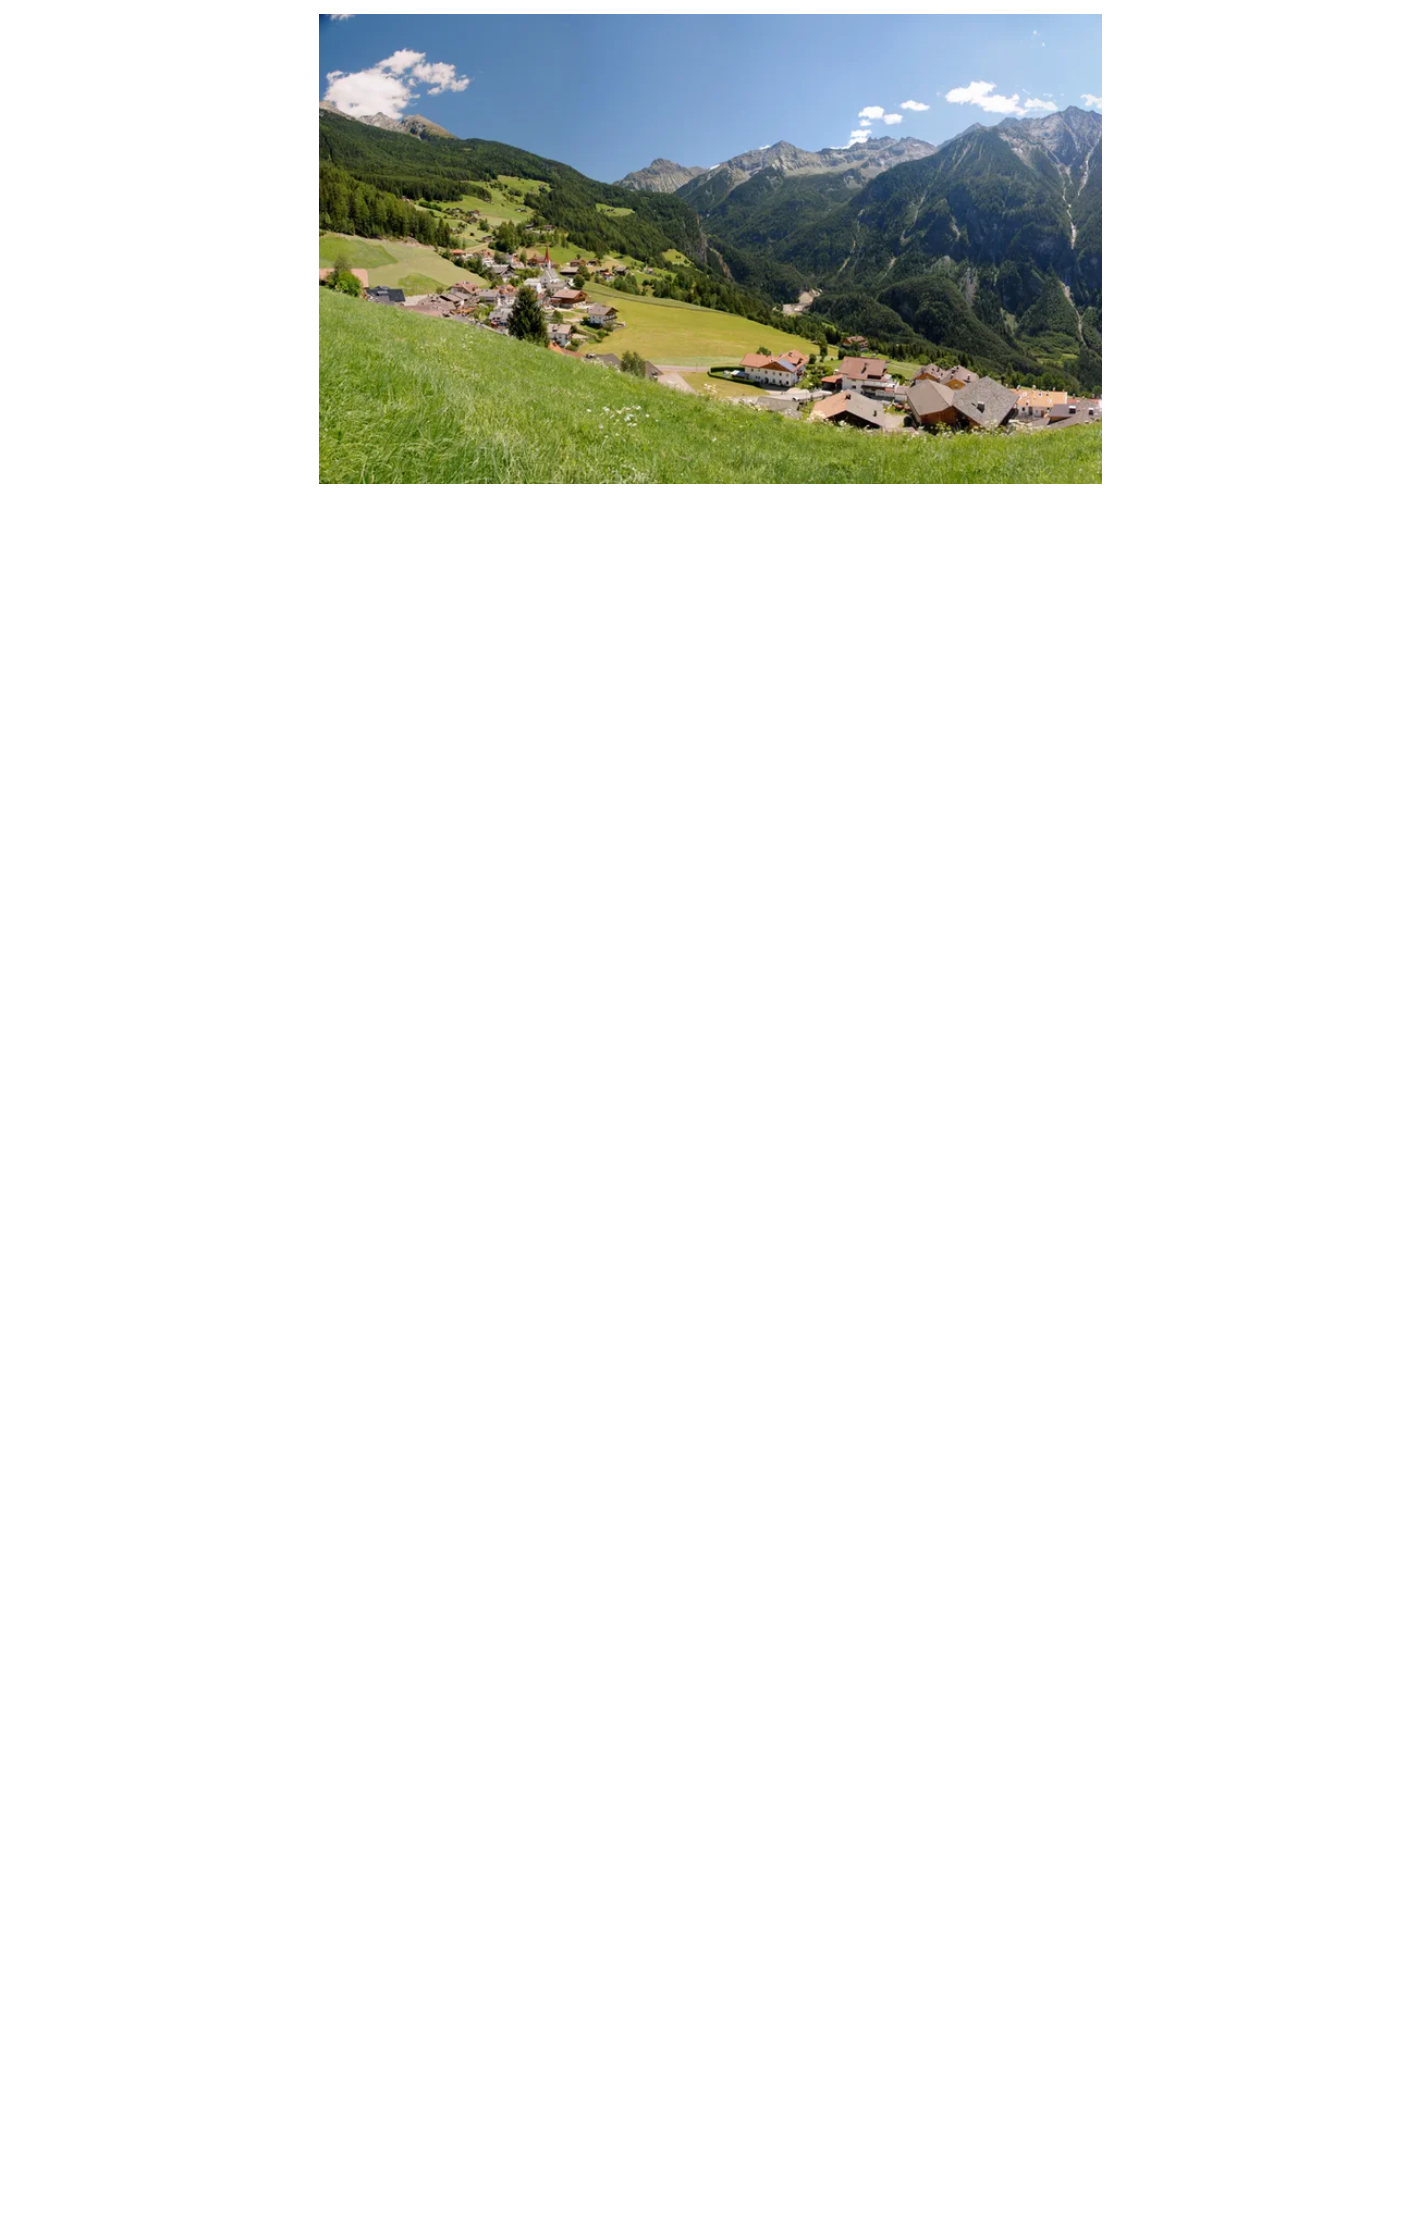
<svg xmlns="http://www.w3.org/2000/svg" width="1423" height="2224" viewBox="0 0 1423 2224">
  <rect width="100%" height="100%" fill="#fff"/>
  <image x="319" y="14" width="783" height="470" href="images/1.png"/>
</svg>
